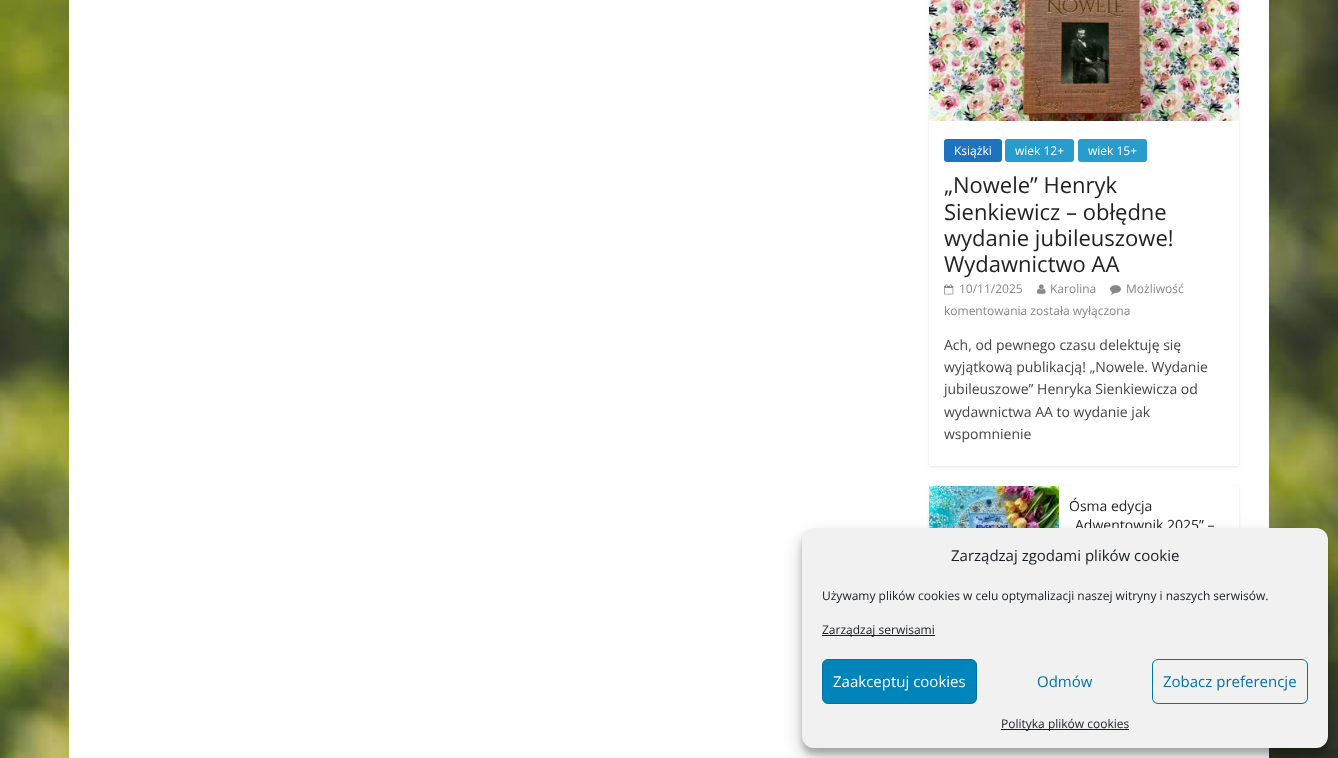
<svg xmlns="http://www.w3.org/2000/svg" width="1338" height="758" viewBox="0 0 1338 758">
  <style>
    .t1 { font: 12px Open Sans; fill: #fff; }
    .t2 { font: 22px Open Sans; fill: #232323; }
    .t3 { font: 12px Open Sans; fill: #888; }
    .t4 { font: 14px Open Sans; fill: #444; }
    .t5 { font: 14px Open Sans; fill: #232323; }
    .t6 { font: 15px Open Sans; fill: #191e23; }
    .t7 { font: 12px Open Sans; fill: #191e23; }
    .t8 { font: 15px Open Sans; fill: #fff; }
    .t9 { font: 15px Open Sans; fill: #0073aa; }
  </style>
  <defs>
    <clipPath id="clip1"><path d="M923 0H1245V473H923ZM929-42H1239V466H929Z" clip-rule="evenodd"/></clipPath>
    <clipPath id="clip2"><path d="M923 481H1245V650H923ZM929 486H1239V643H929Z" clip-rule="evenodd"/></clipPath>
  </defs>
  <rect width="100%" height="100%" fill="#fff"/>
  <image x="0" y="0" width="1338" height="758" href="images/1.png"/>
  <rect x="69" y="0" width="1200" height="758" fill="#fff"/>
  <g clip-path="url(#clip1)">
    <rect x="929" y="-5" width="310" height="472" fill="#0000001a" filter="blur(1.5px)"/>
  </g>
  <image x="929" y="0" width="310" height="121" href="images/2.png"/>
  <rect x="944" y="139" width="58" height="23" rx="3" fill="#1e73be"/>
  <text x="954" y="155" class="t1">Książki</text>
  <rect x="1005" y="139" width="69" height="23" rx="3" fill="#289dcc"/>
  <text x="1015" y="155" class="t1">wiek 12+</text>
  <rect x="1078" y="139" width="69" height="23" rx="3" fill="#289dcc"/>
  <text x="1088" y="155" class="t1">wiek 15+</text>
  <text x="944" y="193" class="t2">„Nowele” Henryk</text>
  <text x="944" y="220" class="t2">Sienkiewicz – obłędne</text>
  <text x="944" y="246" class="t2">wydanie jubileuszowe!</text>
  <text x="944" y="272" class="t2">Wydawnictwo AA</text>
  <image x="1110" y="285" width="11" height="10" href="images/3.png"/>
  <text x="1126" y="293" class="t3">Możliwość</text>
  <text x="944" y="315" class="t3">komentowania została wyłączona</text>
  <image x="944" y="284" width="10" height="11" href="images/4.png"/>
  <text x="959" y="293" class="t3">10/11/2025</text>
  <image x="1037" y="284" width="9" height="10" href="images/5.png"/>
  <text x="1050" y="293" class="t3">Karolina</text>
  <text x="944" y="350" class="t4">Ach, od pewnego czasu delektuję się</text>
  <text x="944" y="372" class="t4">wyjątkową publikacją! „Nowele. Wydanie</text>
  <text x="944" y="394" class="t4">jubileuszowe” Henryka Sienkiewicza od</text>
  <text x="944" y="417" class="t4">wydawnictwa AA to wydanie jak</text>
  <text x="944" y="439" class="t4">wspomnienie</text>
  <g clip-path="url(#clip2)">
    <rect x="929" y="487" width="310" height="157" fill="#0000001a" filter="blur(1.5px)"/>
  </g>
  <image x="929" y="486" width="130" height="42" href="images/6.png"/>
  <text x="1069" y="511" class="t5">Ósma edycja</text>
  <text x="1075" y="530" class="t5">Adwentownik 2025” –</text>
  <rect x="802" y="534" width="526" height="220" rx="12" fill="#0000003b" filter="blur(3px)"/>
  <rect x="802" y="538" width="526" height="220" rx="12" fill="#00000030" filter="blur(10px)"/>
  <rect x="802" y="528" width="526" height="220" rx="12" fill="#f1f1f1"/>
  <text x="951" y="561" class="t6">Zarządzaj zgodami plików cookie</text>
  <text x="822" y="600" class="t7">Używamy plików cookies w celu optymalizacji naszej witryny i naszych serwisów.</text>
  <rect x="822" y="635" width="113" height="1" fill="#191e23"/>
  <text x="822" y="634" class="t7">Zarządzaj serwisami</text>
  <rect x="822.5" y="659.5" width="154" height="44" rx="5.5" fill="#0085ba" stroke="#0073aa"/>
  <text x="833" y="687" class="t8">Zaakceptuj cookies</text>
  <text x="1037" y="687" class="t9">Odmów</text>
  <rect x="1152.5" y="659.5" width="155" height="44" rx="5.5" fill="none" stroke="#0073aa"/>
  <text x="1163" y="687" class="t9">Zobacz preferencje</text>
  <rect x="1001" y="729" width="128" height="1" fill="#191e23"/>
  <text x="1001" y="728" class="t7">Polityka plików cookies</text>
</svg>
